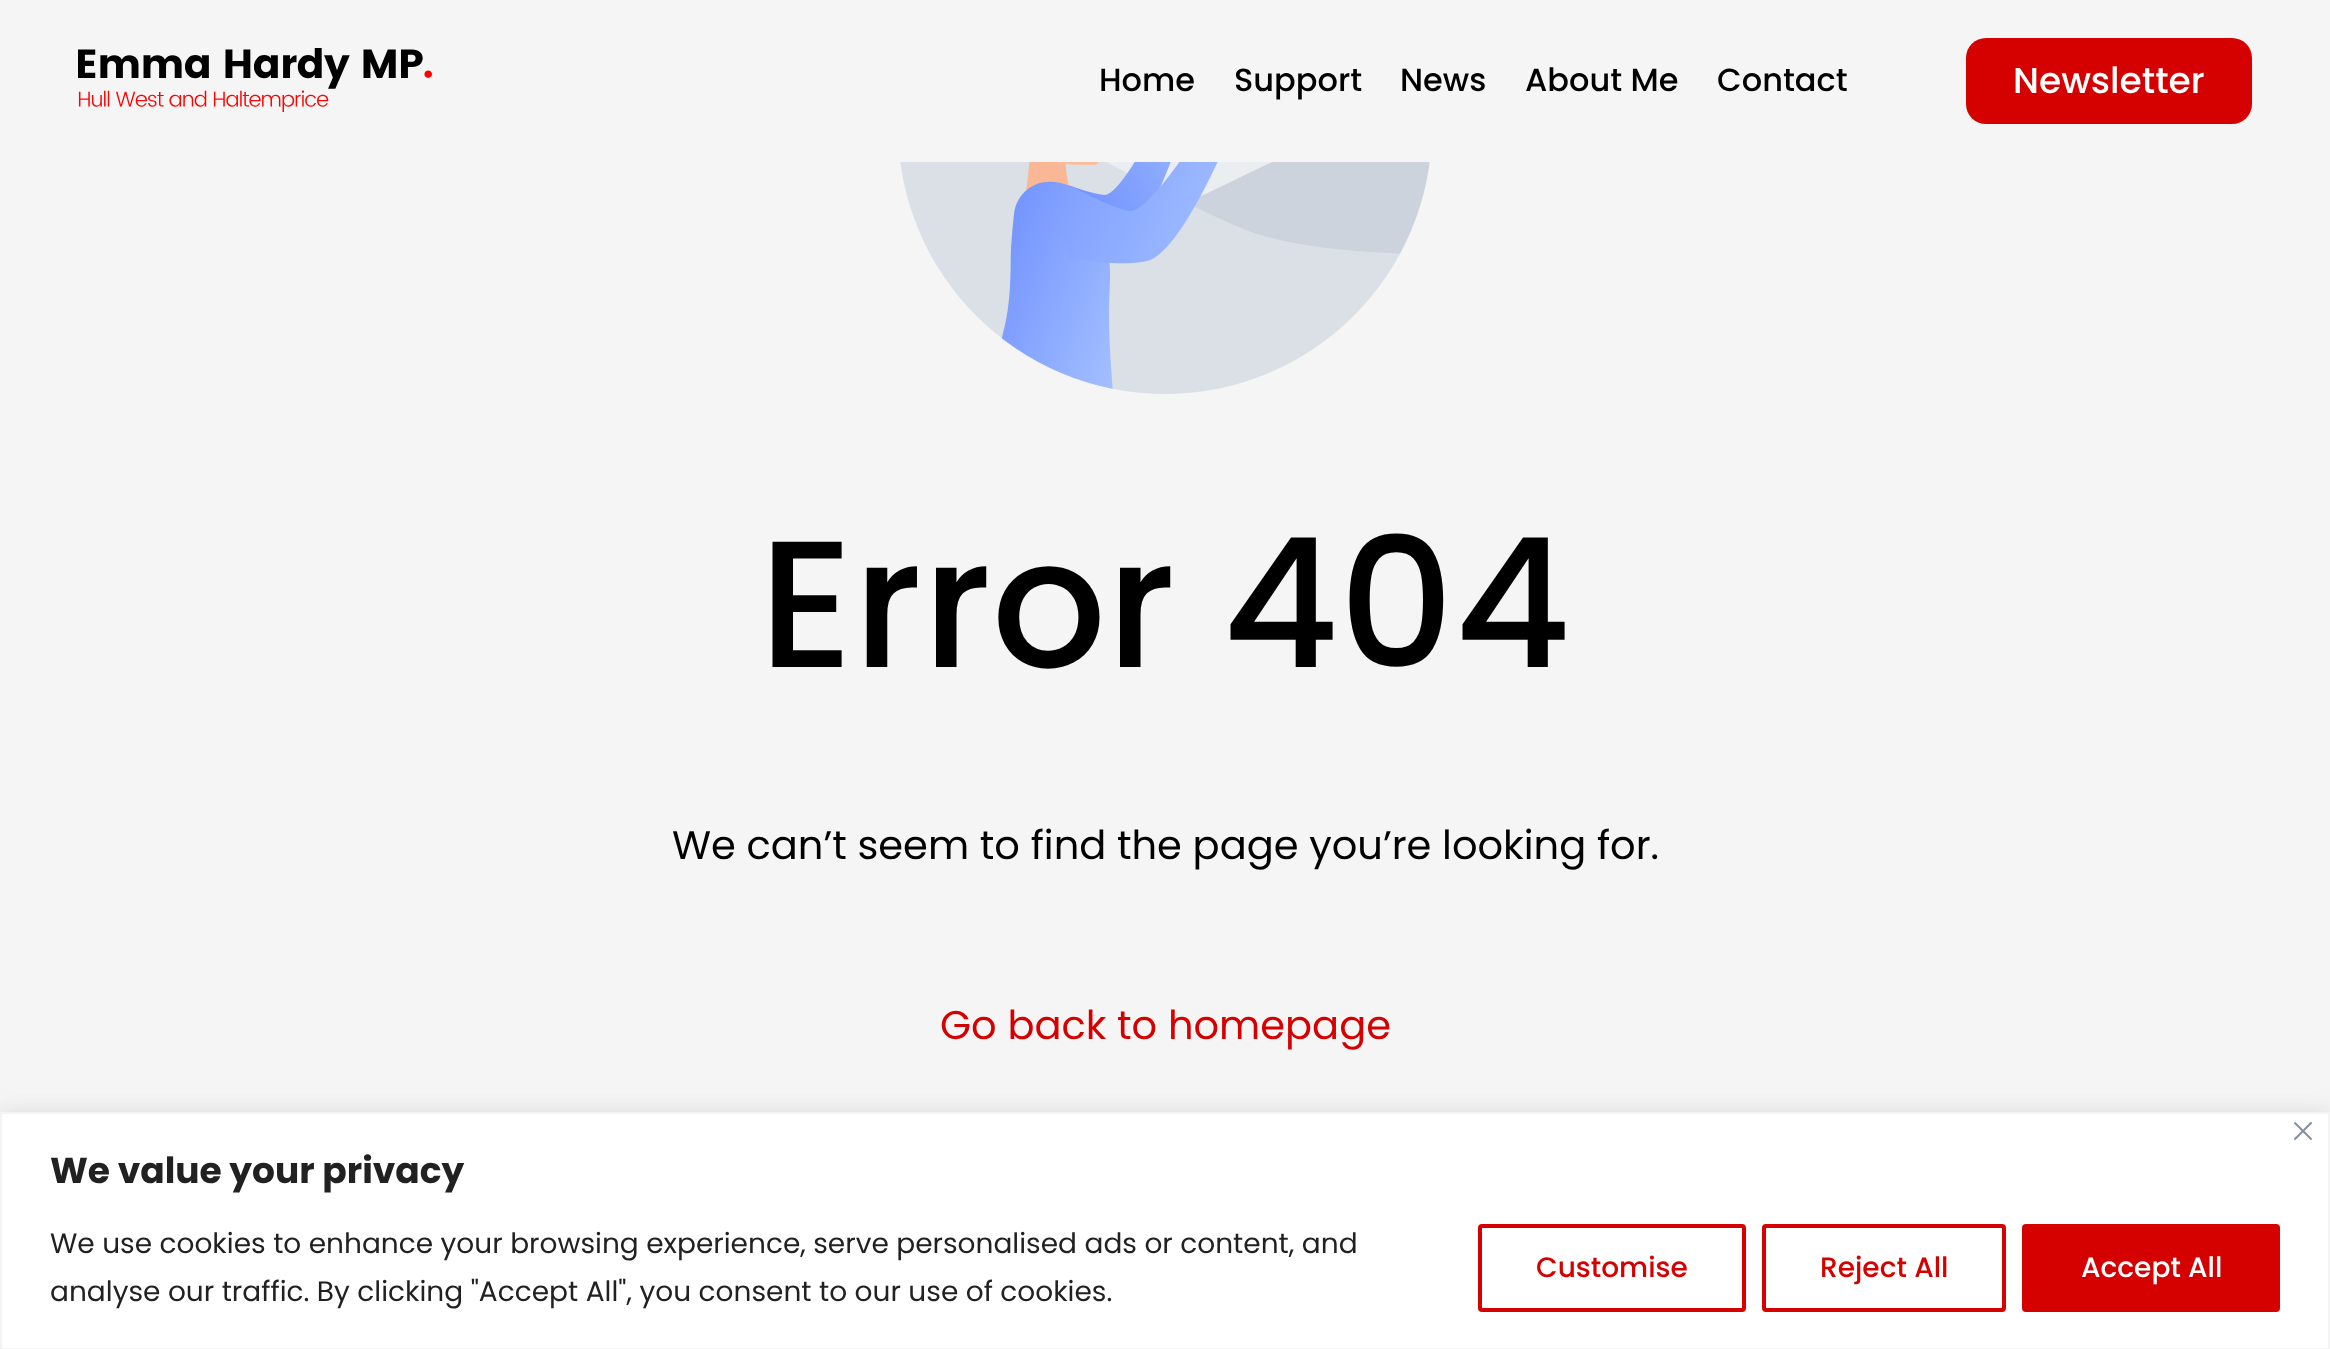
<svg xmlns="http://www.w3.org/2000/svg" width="2330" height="1349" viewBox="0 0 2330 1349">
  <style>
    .t1 { font: 500 32px Poppins; fill: #000; }
    .t2 { font: 500 36px Poppins; fill: #fff; }
    .t3 { font: 500 180px Poppins; fill: #000; }
    .t4 { font: 40px Poppins; fill: #000; }
    .t5 { font: 40px Poppins; fill: #d50000; }
    .t6 { font: bold 36px Poppins; fill: #212121; }
    .t7 { font: 28px Poppins; fill: #212121; }
    .t8 { font: 500 28px Poppins; fill: #d50000; }
    .t9 { font: 500 28px Poppins; fill: #fff; }
  </style>
  <rect width="100%" height="100%" fill="#f5f5f5"/>
  <image x="78" y="48" width="354" height="64" href="images/1.png"/>
  <text x="1099" y="91" class="t1">Home</text>
  <text x="1234" y="91" class="t1">Support</text>
  <text x="1400" y="91" class="t1">News</text>
  <text x="1525" y="91" class="t1">About Me</text>
  <text x="1717" y="91" class="t1">Contact</text>
  <rect x="1966" y="38" width="286" height="86" rx="20" fill="#d50000"/>
  <text x="2013" y="93" class="t2">Newsletter</text>
  <image x="900" y="162" width="530" height="232" href="images/2.png"/>
  <text x="759" y="667" class="t3">Error 404</text>
  <text x="672" y="859" class="t4">We can’t seem to find the page you’re looking for.</text>
  <text x="940" y="1039" class="t5">Go back to homepage</text>
  <rect x="0" y="1110" width="2330" height="238" fill="#acabab4d" filter="blur(10px)"/>
  <rect x="1" y="1113" width="2328" height="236" fill="#fff" stroke="#f4f4f4" stroke-width="2"/>
  <image x="2294" y="1122" width="18" height="18" href="images/3.png"/>
  <text x="50" y="1183" class="t6">We value your privacy</text>
  <text x="50" y="1253" class="t7">We use cookies to enhance your browsing experience, serve personalised ads or content, and</text>
  <text x="50" y="1301" class="t7">analyse our traffic. By clicking "Accept All", you consent to our use of cookies.</text>
  <rect x="1480" y="1226" width="264" height="84" rx="2" fill="none" stroke="#d50000" stroke-width="4"/>
  <text x="1536" y="1277" class="t8">Customise</text>
  <rect x="1764" y="1226" width="240" height="84" rx="2" fill="none" stroke="#d50000" stroke-width="4"/>
  <text x="1820" y="1277" class="t8">Reject All</text>
  <rect x="2024" y="1226" width="254" height="84" rx="2" fill="#d50000" stroke="#d50000" stroke-width="4"/>
  <text x="2081" y="1277" class="t9">Accept All</text>
</svg>
